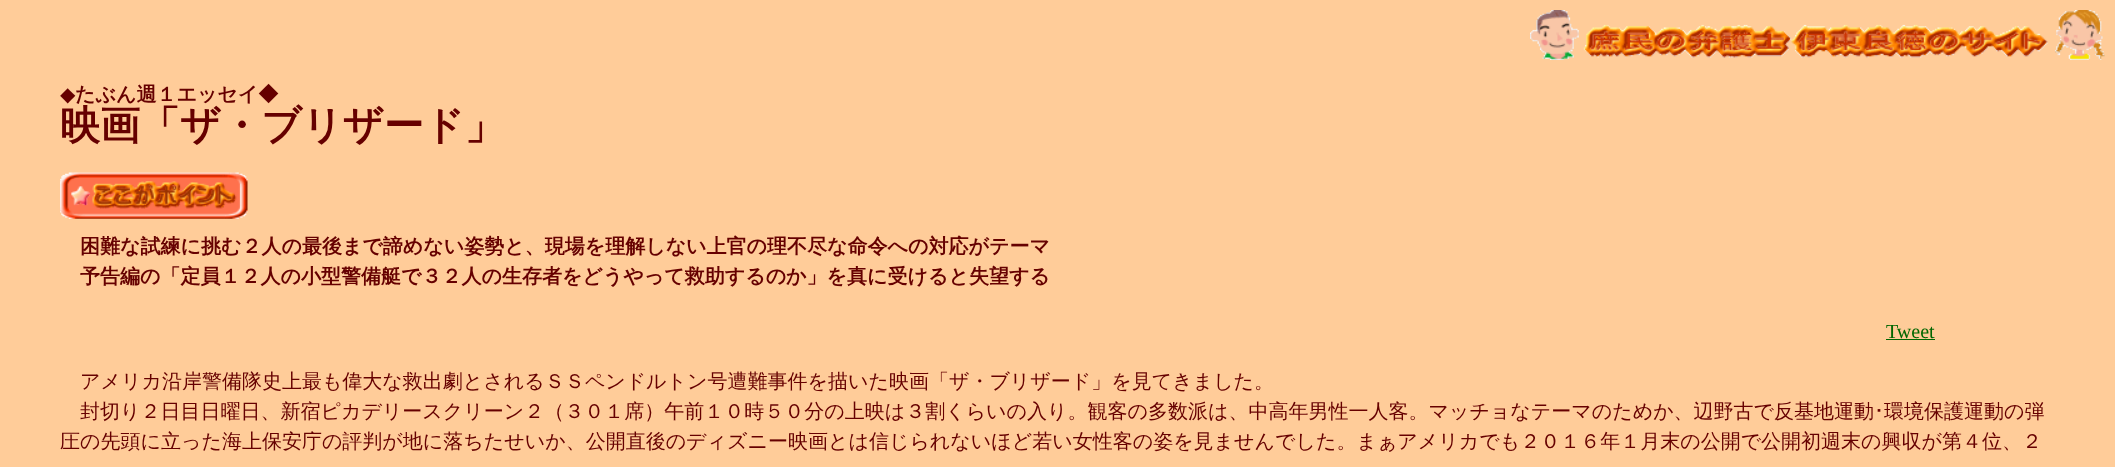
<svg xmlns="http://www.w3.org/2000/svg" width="2115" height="467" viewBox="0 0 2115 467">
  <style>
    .t1 { font: 20px DejaVu Sans; fill: #600; }
    .t2 { font: bold 20px WenQuanYi Zen Hei; fill: #600; }
    .t3 { font: bold 40px WenQuanYi Zen Hei; fill: #600; }
    .t4 { font: 20px Liberation Serif; fill: #060; }
    .t5 { font: 500 20px WenQuanYi Zen Hei; fill: #600; }
    .t6 { font: 20px IPAGothic; fill: #600; }
  </style>
  <rect width="100%" height="100%" fill="#fc9"/>
  <image x="1530" y="10" width="575" height="50" href="images/1.png"/>
  <text x="60" y="101" class="t1">◆</text>
  <text x="75" y="101" class="t2">たぶん週１エッセイ◆</text>
  <text x="60" y="139" class="t3">映画「ザ・ブリザード」</text>
  <image x="60" y="172" width="188" height="47" href="images/2.png"/>
  <text x="80" y="253" class="t2">困難な試練に挑む２人の最後まで諦めない姿勢と、現場を理解しない上官の理不尽な命令への対応がテーマ</text>
  <text x="80" y="283" class="t2">予告編の「定員１２人の小型警備艇で３２人の生存者をどうやって救助するのか」を真に受けると失望する</text>
  <text x="1886" y="338" class="t4">Tweet</text>
  <rect x="1886" y="339" width="49" height="1" fill="#060"/>
  <text x="80" y="388" class="t5">アメリカ沿岸警備隊史上最も偉大な救出劇とされるＳＳペンドルトン号遭難事件を描いた映画「ザ・ブリザード」を見てきました。</text>
  <text x="80" y="418" class="t5">封切り２日目日曜日、新宿ピカデリースクリーン２（３０１席）午前１０時５０分の上映は３割くらいの入り。観客の多数派は、中高年男性一人客。マッチョなテーマのためか、辺野古で反基地運動</text>
  <text x="1874" y="418" class="t6">･</text>
  <text x="1884" y="418" class="t5">環境保護運動の弾</text>
  <text x="60" y="448" class="t5">圧の先頭に立った海上保安庁の評判が地に落ちたせいか、公開直後のディズニー映画とは信じられないほど若い女性客の姿を見ませんでした。まぁアメリカでも２０１６年１月末の公開で公開初週末の興収が第４位、２</text>
</svg>
